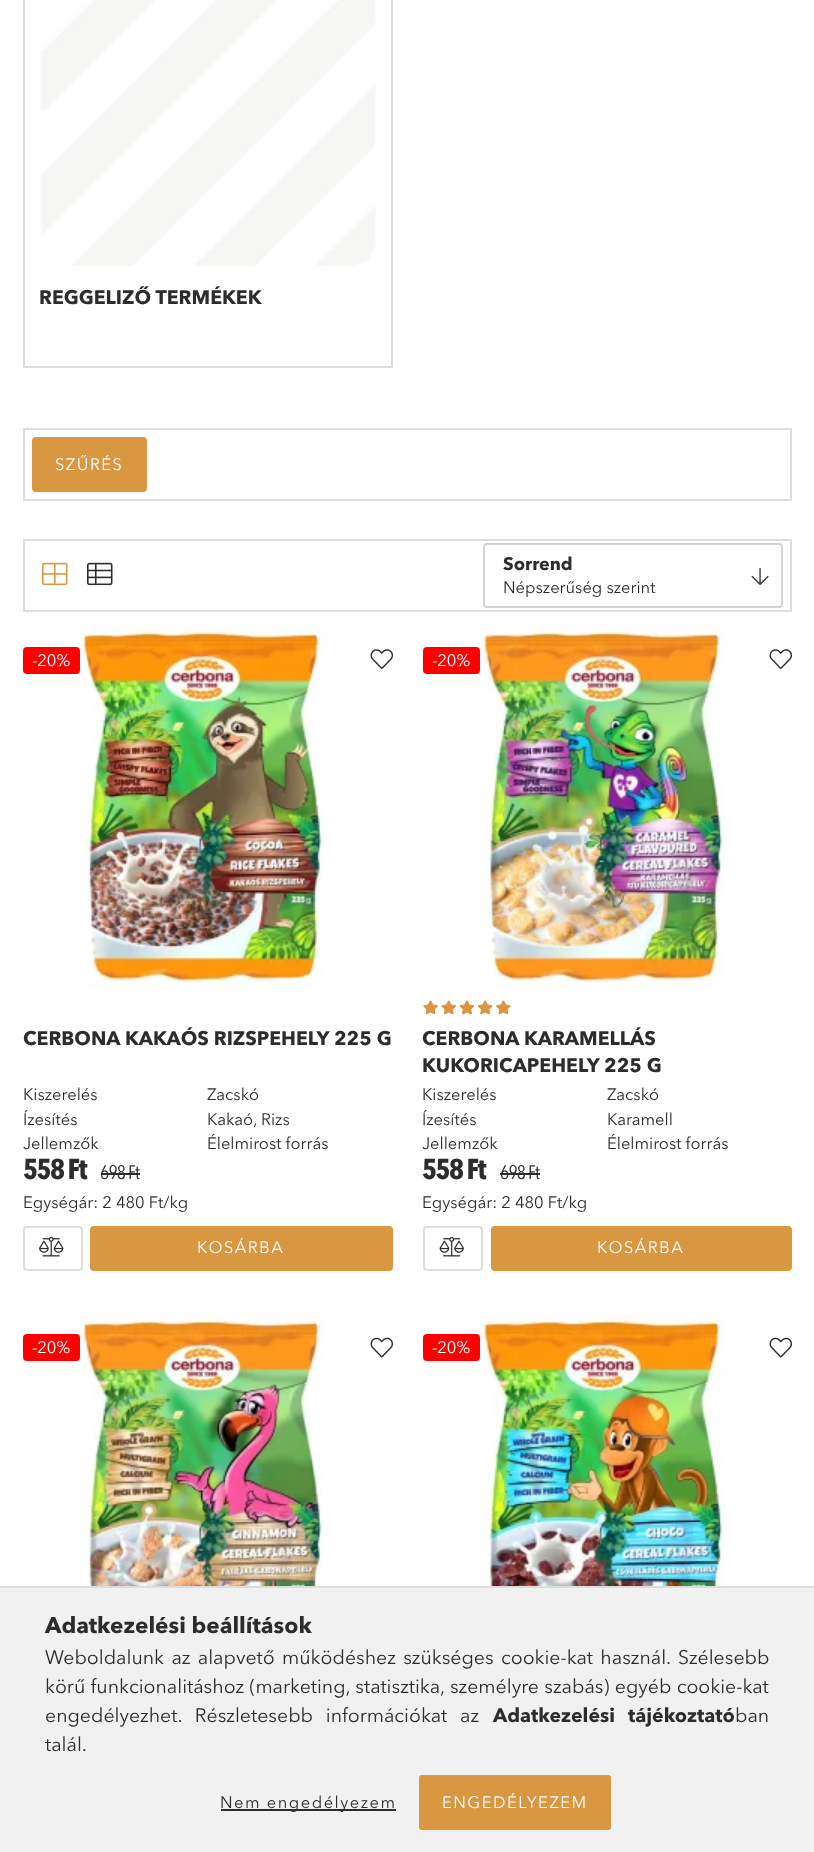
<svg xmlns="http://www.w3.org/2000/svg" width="814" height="1852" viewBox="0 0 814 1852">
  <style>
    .t1 { font: bold 19.5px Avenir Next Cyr; fill: #2c2c2c; }
    .t2 { font: 16.5px Avenir Next Cyr; letter-spacing: 1.5px; fill: #fff; }
    .t3 { font: bold 18px Avenir Next Cyr; fill: #2c2c2c; }
    .t4 { font: 16.5px Avenir Next Cyr; fill: #2c2c2c; }
    .t5 { font: 16.5px Avenir Next Cyr; fill: #fff; }
    .t6 { font: bold 28.5px Avenir Next; letter-spacing: -1.5px; fill: #2c2c2c; }
    .t7 { font: 19.5px Avenir Next; letter-spacing: -0.75px; fill: #2c2c2c; }
    .t8 { font: bold 22.5px Avenir Next Cyr; fill: #2c2c2c; }
    .t9 { font: 19.5px Avenir Next Cyr; fill: #2c2c2c; }
    .t10 { font: 16.5px Avenir Next Cyr; letter-spacing: 1.5px; fill: #2c2c2c; }
  </style>
  <rect width="100%" height="100%" fill="#fff"/>
  <rect x="24" y="-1" width="368" height="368" fill="none" stroke="#ddd" stroke-width="2"/>
  <image x="40" y="0" width="337" height="267" href="images/1.png"/>
  <text x="39" y="304" class="t1">REGGELIZŐ TERMÉKEK</text>
  <rect x="24" y="429" width="767" height="71" fill="none" stroke="#ddd" stroke-width="2"/>
  <rect x="33" y="438" width="113" height="53" rx="3" fill="#d99741" stroke="#d99741" stroke-width="2"/>
  <text x="55" y="470" class="t2">SZŰRÉS</text>
  <rect x="24" y="540" width="767" height="71" fill="none" stroke="#ddd" stroke-width="2"/>
  <image x="42" y="562" width="26" height="24" href="images/2.png"/>
  <image x="87" y="562" width="26" height="24" href="images/3.png"/>
  <rect x="484" y="544" width="298" height="63" rx="3" fill="none" stroke="#ced4da" stroke-width="2"/>
  <text x="503" y="570" class="t3">Sorrend</text>
  <image x="751" y="568" width="18" height="18" href="images/4.png"/>
  <text x="503" y="593" class="t4">Népszerűség szerint</text>
  <rect x="23" y="647" width="57" height="27" rx="4" fill="#f00"/>
  <text x="32" y="666" class="t5">-20%</text>
  <image x="370" y="649" width="24" height="20" href="images/5.png"/>
  <image x="81" y="626" width="242" height="361" href="images/6.png"/>
  <text x="23" y="1045" class="t1">CERBONA KAKAÓS RIZSPEHELY 225 G</text>
  <text x="23" y="1100" class="t4">Kiszerelés</text>
  <text x="207" y="1100" class="t4">Zacskó</text>
  <text x="23" y="1125" class="t4">Ízesítés</text>
  <text x="207" y="1125" class="t4">Kakaó, Rizs</text>
  <text x="23" y="1149" class="t4">Jellemzők</text>
  <text x="207" y="1149" class="t4">Élelmirost forrás</text>
  <text x="23" y="1179" class="t6">558 Ft</text>
  <text x="100" y="1179" class="t7">698 Ft</text>
  <rect x="101" y="1173" width="39" height="2" fill="#2c2c2c"/>
  <text x="23" y="1208" class="t4">Egységár: 2 480 Ft/kg</text>
  <rect x="24" y="1227" width="58" height="43" rx="3" fill="none" stroke="#ddd" stroke-width="2"/>
  <image x="39" y="1236" width="25" height="21" href="images/7.png"/>
  <rect x="91" y="1227" width="301" height="43" rx="3" fill="#d99741" stroke="#d99741" stroke-width="2"/>
  <text x="197" y="1253" class="t2">KOSÁRBA</text>
  <rect x="423" y="647" width="57" height="27" rx="4" fill="#f00"/>
  <text x="432" y="666" class="t5">-20%</text>
  <image x="769" y="649" width="24" height="20" href="images/5.png"/>
  <image x="481" y="626" width="243" height="361" href="images/8.png"/>
  <image x="423" y="1000" width="88" height="15" href="images/9.png"/>
  <image x="423" y="1000" width="88" height="15" href="images/10.png"/>
  <text x="422" y="1045" class="t1">CERBONA KARAMELLÁS</text>
  <text x="422" y="1072" class="t1">KUKORICAPEHELY 225 G</text>
  <text x="422" y="1100" class="t4">Kiszerelés</text>
  <text x="607" y="1100" class="t4">Zacskó</text>
  <text x="422" y="1125" class="t4">Ízesítés</text>
  <text x="607" y="1125" class="t4">Karamell</text>
  <text x="422" y="1149" class="t4">Jellemzők</text>
  <text x="607" y="1149" class="t4">Élelmirost forrás</text>
  <text x="422" y="1179" class="t6">558 Ft</text>
  <text x="500" y="1179" class="t7">698 Ft</text>
  <rect x="500" y="1173" width="40" height="2" fill="#2c2c2c"/>
  <text x="422" y="1208" class="t4">Egységár: 2 480 Ft/kg</text>
  <rect x="424" y="1227" width="58" height="43" rx="3" fill="none" stroke="#ddd" stroke-width="2"/>
  <image x="439" y="1236" width="25" height="21" href="images/11.png"/>
  <rect x="492" y="1227" width="299" height="43" rx="3" fill="#d99741" stroke="#d99741" stroke-width="2"/>
  <text x="597" y="1253" class="t2">KOSÁRBA</text>
  <rect x="23" y="1334" width="57" height="27" rx="4" fill="#f00"/>
  <text x="32" y="1353" class="t5">-20%</text>
  <image x="370" y="1337" width="23" height="21" href="images/12.png"/>
  <image x="81" y="1315" width="242" height="271" href="images/13.png"/>
  <rect x="423" y="1334" width="57" height="27" rx="4" fill="#f00"/>
  <text x="432" y="1353" class="t5">-20%</text>
  <image x="769" y="1337" width="23" height="21" href="images/12.png"/>
  <image x="481" y="1315" width="243" height="271" href="images/14.png"/>
  <rect x="0" y="1588" width="814" height="264" fill="#f1f1f1"/>
  <rect x="0" y="1586" width="814" height="2" fill="#ddd"/>
  <text x="45" y="1633" class="t8">Adatkezelési beállítások</text>
  <text x="45" y="1664" word-spacing="2.5" class="t9">Weboldalunk az alapvető működéshez szükséges cookie-kat használ. Szélesebb</text>
  <text x="45" y="1693" word-spacing="0.5" class="t9">körű funkcionalitáshoz (marketing, statisztika, személyre szabás) egyéb cookie-kat</text>
  <text x="45" y="1722" word-spacing="8" class="t9">engedélyezhet. Részletesebb információkat az</text>
  <text x="493" y="1722" word-spacing="8" class="t1">Adatkezelési tájékoztató</text>
  <text x="735" y="1722" class="t9">ban</text>
  <text x="45" y="1751" class="t9">talál.</text>
  <rect x="221" y="1809" width="175" height="2" fill="#2c2c2c"/>
  <text x="220" y="1808" class="t10">Nem engedélyezem</text>
  <rect x="420" y="1776" width="190" height="53" rx="2" fill="#d99741" stroke="#d99741" stroke-width="2"/>
  <text x="442" y="1808" class="t2">ENGEDÉLYEZEM</text>
</svg>
